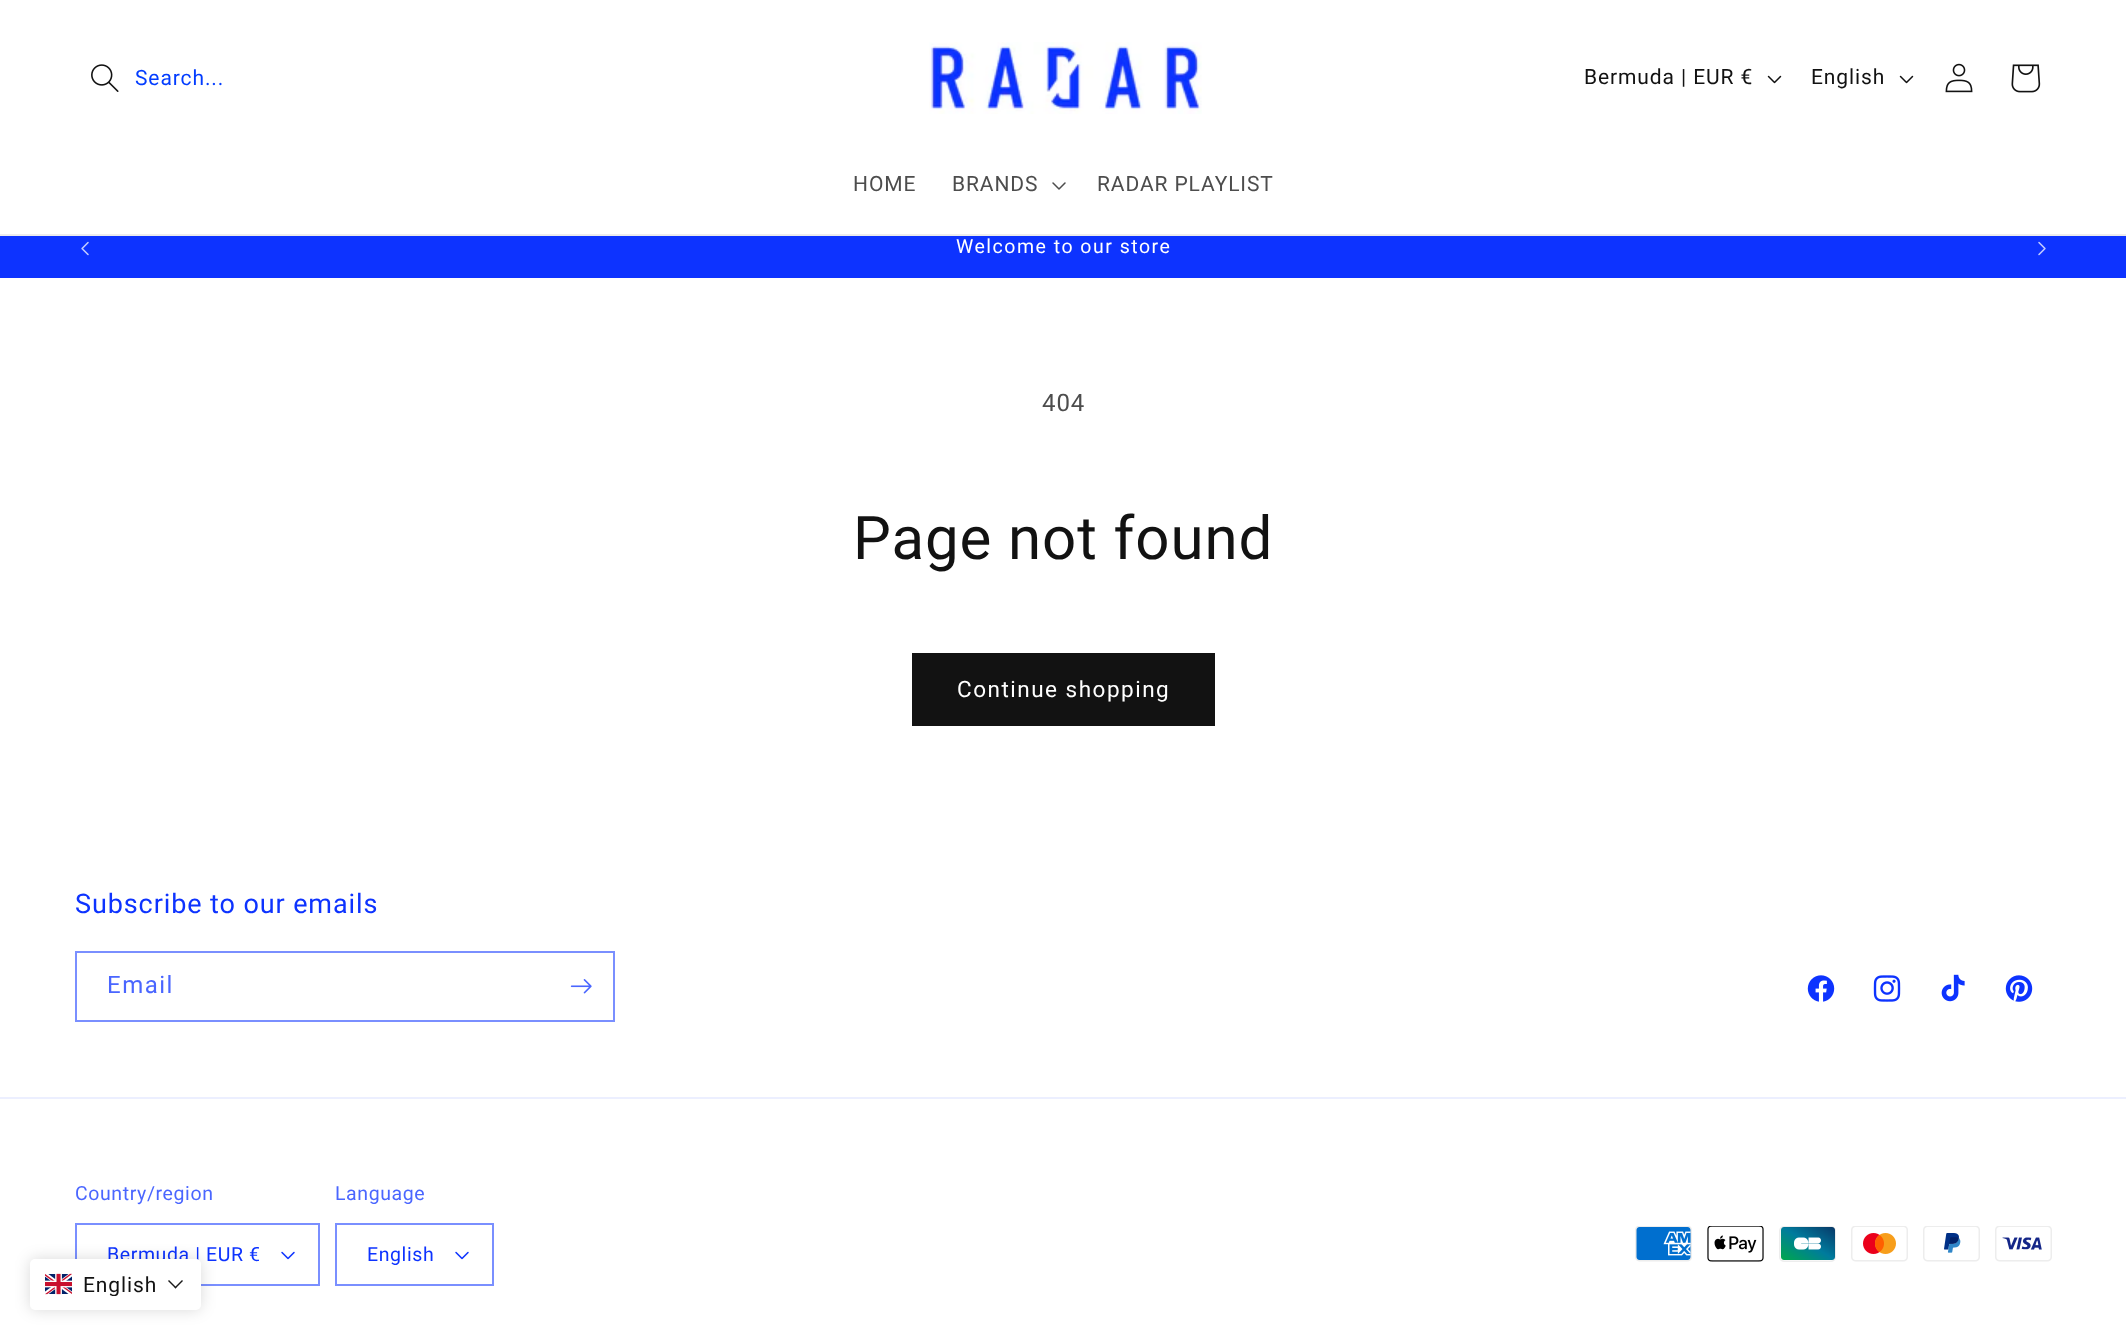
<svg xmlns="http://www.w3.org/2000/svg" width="2126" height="1339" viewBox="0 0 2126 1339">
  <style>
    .t1 { font: 21px Roboto; letter-spacing: 0.9px; fill: #033dff; }
    .t2 { font: 21px Roboto; letter-spacing: 0.9px; fill: #121212; }
    .t3 { font: 21px Roboto; letter-spacing: 0.9px; fill: #4d4d4d; }
    .t4 { font: 19.5px Roboto; letter-spacing: 1.5px; fill: #fff; }
    .t5 { font: 24px Roboto; letter-spacing: 0.9px; fill: #4d4d4d; }
    .t6 { font: 60px Roboto; letter-spacing: 0.9px; fill: #121212; }
    .t7 { font: 22.5px Roboto; letter-spacing: 1.5px; fill: #fff; }
    .t8 { font: 27px Roboto; letter-spacing: 0.9px; fill: #0d33ff; }
    .t9 { font: 24px Roboto; letter-spacing: 1.5px; fill: #4a66ff; }
    .t10 { font: 19.5px Roboto; letter-spacing: 0.6px; fill: #4a66ff; }
    .t11 { font: 19.5px Roboto; letter-spacing: 0.6px; fill: #0d33ff; }
  </style>
  <defs>
    <clipPath id="clip1"><rect x="83" y="1272" width="75" height="24"/></clipPath>
  </defs>
  <rect width="100%" height="100%" fill="#fff"/>
  <rect x="0" y="234" width="2126" height="2" fill="#ececec"/>
  <image x="91" y="64" width="28" height="28" href="images/1.png"/>
  <text x="135" y="85" class="t1">Search...</text>
  <image x="929" y="42" width="273" height="72" href="images/2.png"/>
  <text x="1584" y="84" class="t2">Bermuda | EUR €</text>
  <image x="1767" y="75" width="15" height="9" href="images/3.png"/>
  <text x="1811" y="84" class="t2">English</text>
  <image x="1899" y="75" width="15" height="9" href="images/3.png"/>
  <image x="1945" y="63" width="28" height="30" href="images/4.png"/>
  <image x="2011" y="64" width="30" height="29" href="images/5.png"/>
  <text x="853" y="191" class="t3">HOME</text>
  <text x="952" y="191" class="t3">BRANDS</text>
  <image x="1052" y="182" width="14" height="8" href="images/6.png"/>
  <text x="1097" y="191" class="t3">RADAR PLAYLIST</text>
  <rect x="0" y="236" width="2126" height="42" fill="#0d33ff"/>
  <image x="81" y="241" width="8" height="15" href="images/7.png"/>
  <text x="956" y="253" class="t4">Welcome to our store</text>
  <image x="2038" y="241" width="8" height="15" href="images/8.png"/>
  <text x="1042" y="411" class="t5">404</text>
  <text x="853" y="559" class="t6">Page not found</text>
  <rect x="912" y="653" width="303" height="73" fill="#121212"/>
  <text x="957" y="697" class="t7">Continue shopping</text>
  <text x="75" y="913" class="t8">Subscribe to our emails</text>
  <rect x="76" y="952" width="538" height="69" fill="none" stroke="#7a8fff" stroke-width="2"/>
  <text x="107" y="993" class="t9">Email</text>
  <image x="570" y="979" width="22" height="15" href="images/9.png"/>
  <image x="1807" y="975" width="28" height="27" href="images/10.png"/>
  <image x="1873" y="975" width="28" height="27" href="images/11.png"/>
  <image x="1941" y="974" width="24" height="28" href="images/12.png"/>
  <image x="2005" y="975" width="28" height="27" href="images/13.png"/>
  <rect x="0" y="1097" width="2126" height="2" fill="#ecefff"/>
  <text x="75" y="1200" class="t10">Country/region</text>
  <image x="281" y="1251" width="14" height="9" href="images/14.png"/>
  <rect x="76" y="1224" width="243" height="61" fill="none" stroke="#7a8fff" stroke-width="2"/>
  <text x="107" y="1261" class="t11">Bermuda | EUR €</text>
  <text x="335" y="1200" class="t10">Language</text>
  <image x="455" y="1251" width="14" height="9" href="images/14.png"/>
  <rect x="336" y="1224" width="157" height="61" fill="none" stroke="#7a8fff" stroke-width="2"/>
  <text x="367" y="1261" class="t11">English</text>
  <image x="1635" y="1226" width="57" height="36" href="images/15.png"/>
  <image x="1707" y="1226" width="57" height="36" href="images/16.png"/>
  <image x="1779" y="1226" width="57" height="36" href="images/17.png"/>
  <image x="1851" y="1226" width="57" height="36" href="images/18.png"/>
  <image x="1923" y="1226" width="57" height="36" href="images/19.png"/>
  <image x="1995" y="1226" width="57" height="36" href="images/20.png"/>
  <rect x="30" y="1259" width="171" height="51" rx="5" fill="#00000026" filter="blur(7.5px)"/>
  <rect x="30" y="1259" width="171" height="51" rx="5" fill="#fff"/>
  <image x="45" y="1273" width="27" height="22" href="images/21.png"/>
  <g clip-path="url(#clip1)">
    <text x="83" y="1292" class="t2">English</text>
  </g>
  <path d="M182 1280L183 1281L175.5 1288.5L174.5 1287.5Z" fill="#1a1a1a"/>
  <path d="M169 1280L176.5 1287.5L175.5 1288.5L168 1281Z" fill="#1a1a1a"/>
</svg>
